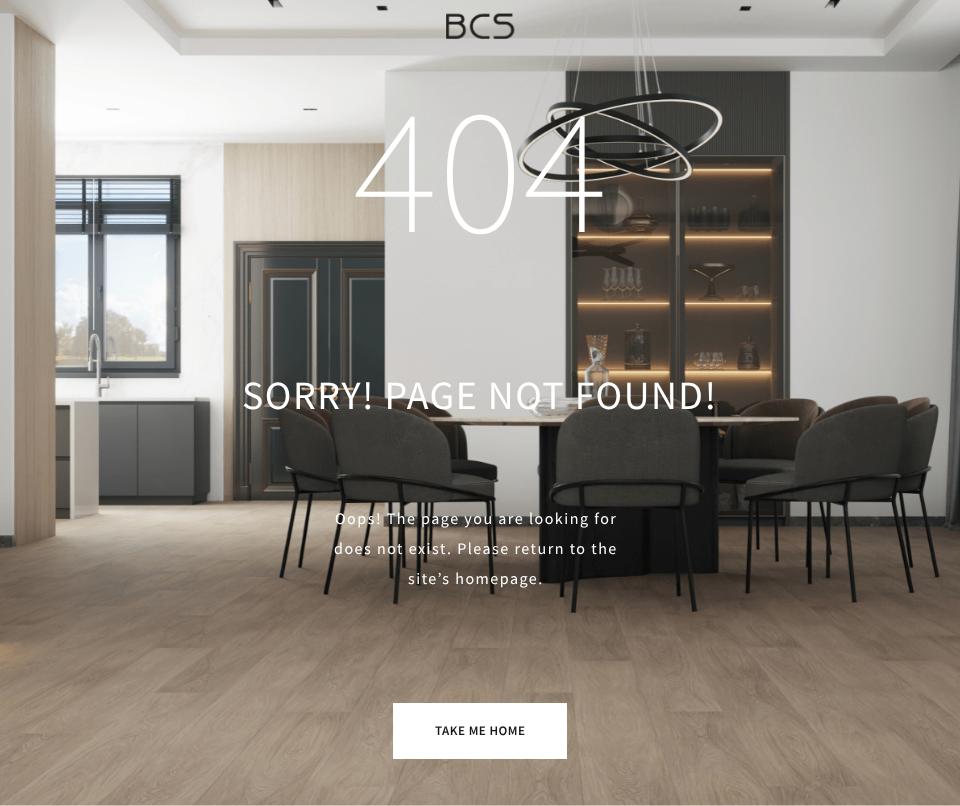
<svg xmlns="http://www.w3.org/2000/svg" width="960" height="806" viewBox="0 0 960 806">
  <style>
    .t1 { font: 200 180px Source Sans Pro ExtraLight; fill: #fff; }
    .t2 { font: 40px Source Sans Pro; letter-spacing: 1.5px; fill: #fff; }
    .t3 { font: 16px Source Sans Pro; letter-spacing: 1.5px; fill: #fff; }
    .t4 { font: 600 13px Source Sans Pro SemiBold; letter-spacing: 0.5px; fill: #1a1a1a; }
  </style>
  <rect width="100%" height="100%" fill="#fff"/>
  <image x="0" y="0" width="960" height="806" href="images/1.png"/>
  <image x="446" y="13" width="69" height="27" href="images/2.png"/>
  <text x="353" y="232" class="t1">404</text>
  <text x="242" y="409" class="t2">SORRY! PAGE NOT FOUND!</text>
  <text x="335" y="524" class="t3">Oops! The page you are looking for</text>
  <text x="334" y="554" class="t3">does not exist. Please return to the</text>
  <text x="408" y="584" class="t3">site’s homepage.</text>
  <rect x="393" y="703" width="174" height="56" fill="#fff"/>
  <text x="435" y="735" class="t4">TAKE ME HOME</text>
</svg>
